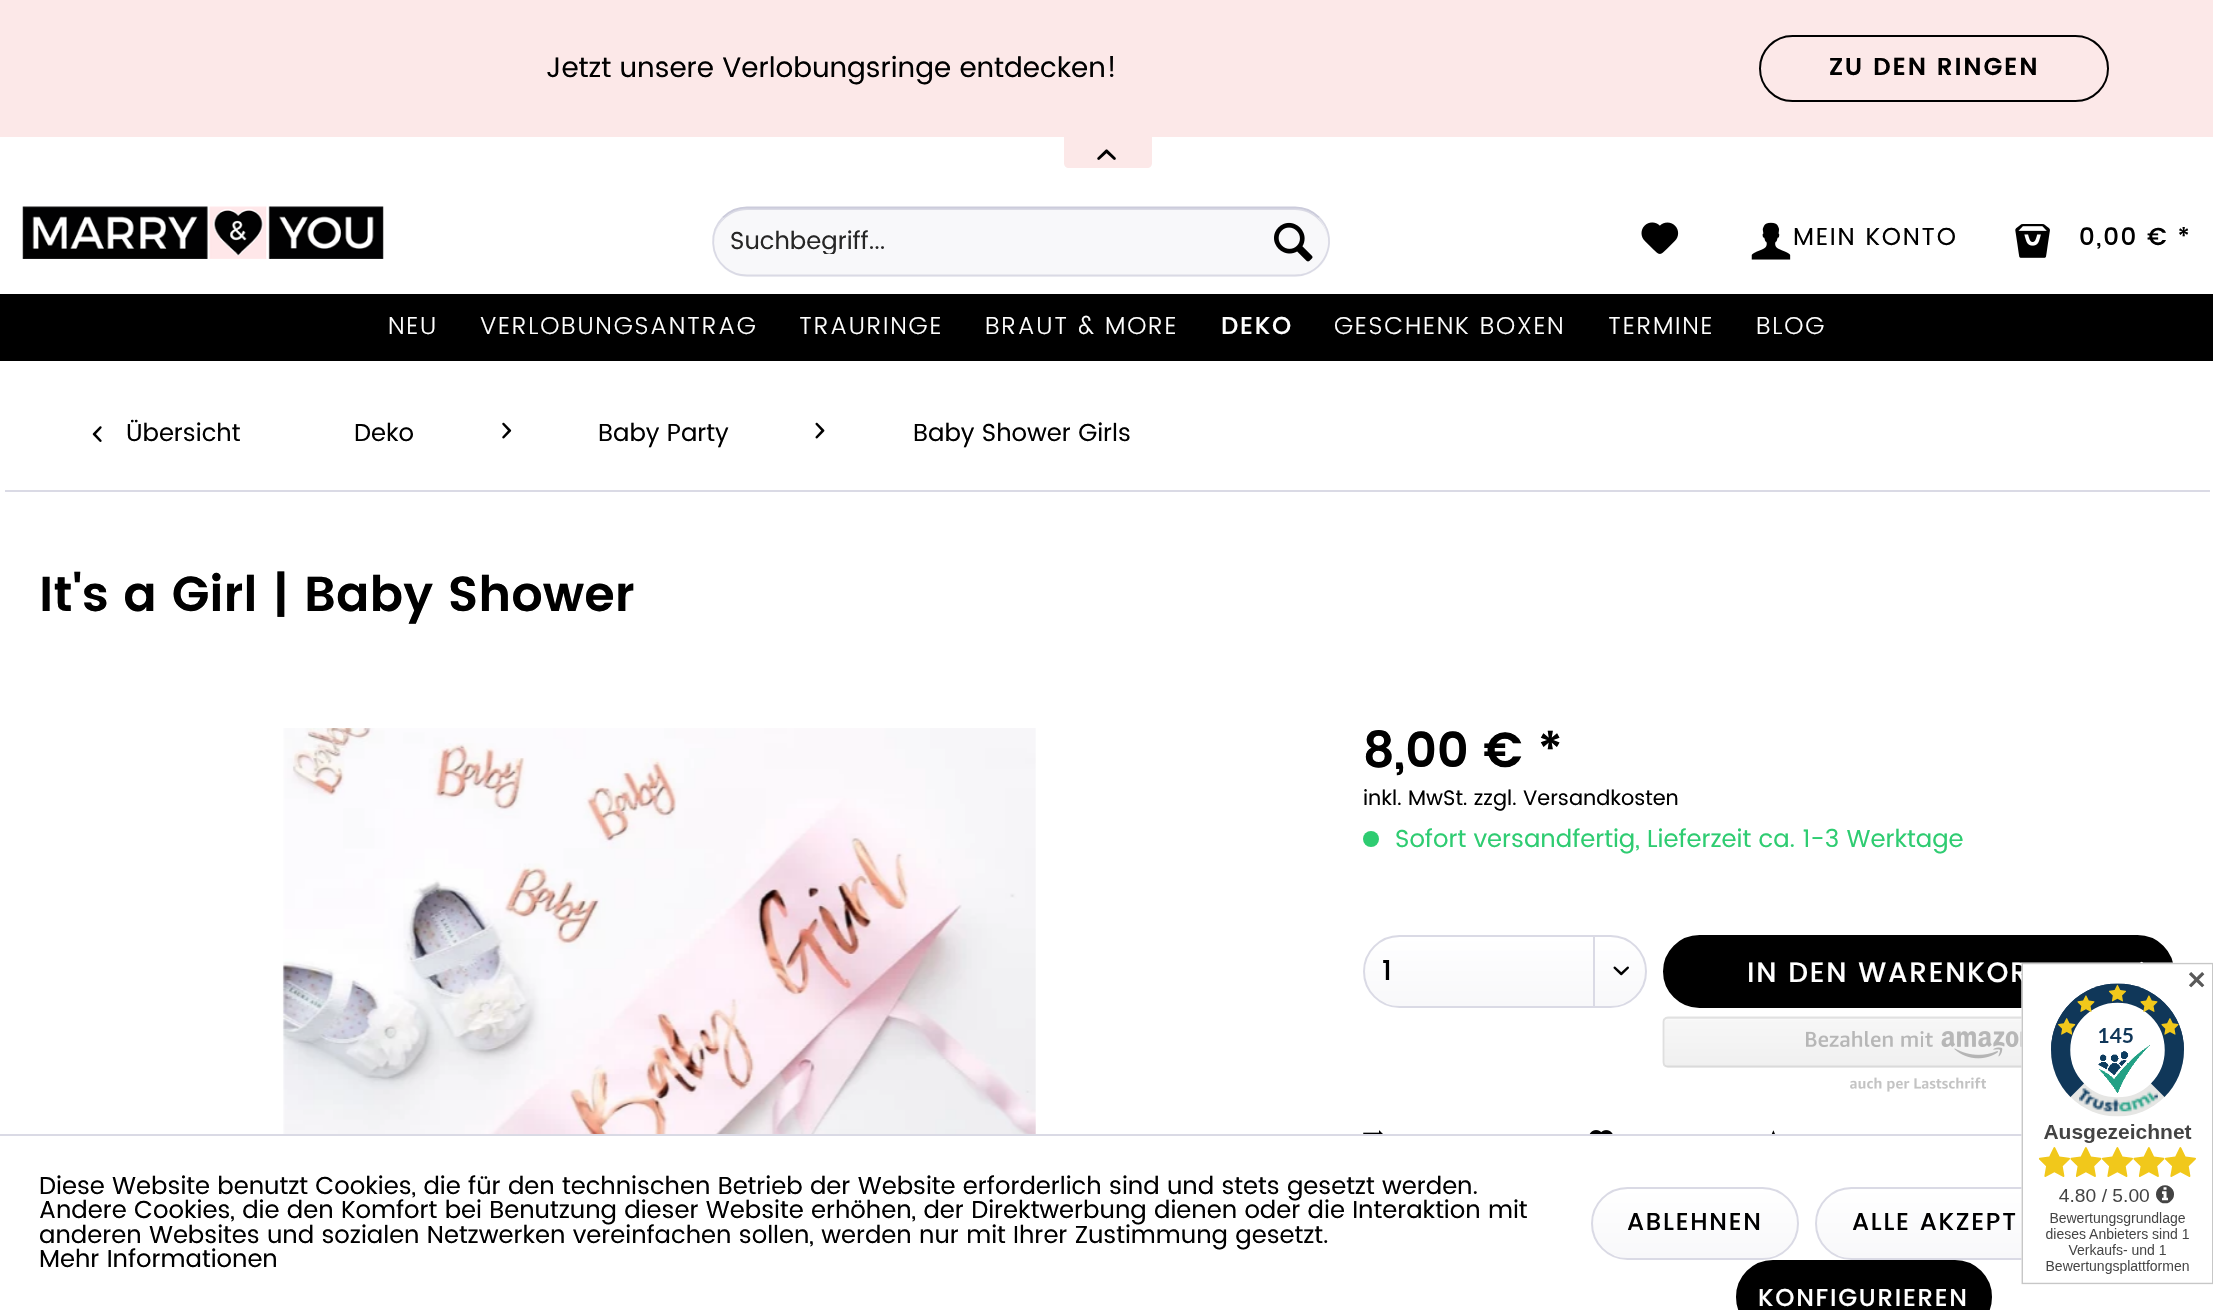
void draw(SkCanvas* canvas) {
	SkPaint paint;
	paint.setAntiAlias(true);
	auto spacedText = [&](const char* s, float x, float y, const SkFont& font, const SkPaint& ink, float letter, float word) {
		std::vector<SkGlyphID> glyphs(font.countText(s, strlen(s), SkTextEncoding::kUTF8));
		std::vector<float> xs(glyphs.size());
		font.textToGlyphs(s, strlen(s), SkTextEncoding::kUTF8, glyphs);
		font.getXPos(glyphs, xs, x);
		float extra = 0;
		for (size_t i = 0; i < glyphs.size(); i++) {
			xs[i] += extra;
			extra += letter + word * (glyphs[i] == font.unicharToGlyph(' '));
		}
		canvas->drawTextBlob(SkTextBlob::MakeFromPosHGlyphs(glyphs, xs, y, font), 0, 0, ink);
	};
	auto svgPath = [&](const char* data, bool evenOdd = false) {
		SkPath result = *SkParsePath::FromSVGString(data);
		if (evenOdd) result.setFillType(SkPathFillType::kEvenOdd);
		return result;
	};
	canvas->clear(0xffffffff);
	paint.setColor(0xfffce8e8);
	canvas->drawRect(SkRect::MakeXYWH(0, 0, 2213, 137), paint);
	SkFont f1(fontMgr->matchFamilyStyle("Poppins", SkFontStyle::Normal()), 28);
	f1.setSubpixel(true);
	paint.setColor(0xff000000);
	canvas->drawString("Jetzt unsere Verlobungsringe entdecken!", 546, 77, f1, paint);
	paint.setStroke(true);
	paint.setStrokeWidth(2);
	canvas->drawRoundRect(SkRect::MakeXYWH(1760, 36, 348, 65), 32.5, 32.5, paint);
	SkFont f2(fontMgr->matchFamilyStyle("Poppins", SkFontStyle(600, SkFontStyle::kNormal_Width, SkFontStyle::kUpright_Slant)), 24.5);
	f2.setSubpixel(true);
	paint.setStroke(false);
	spacedText("ZU DEN RINGEN", 1829, 75, f2, paint, 1.75, 0);
	paint.setColor(0xfffce8e8);
	canvas->drawPath(svgPath("M1064 137H1152V163C1152 166 1150 168 1147 168H1069C1066 168 1064 166 1064 163Z"), paint);
	canvas->drawImageRect(SkImages::DeferredFromEncodedData(SkData::MakeFromFileName("img1.png")), SkRect::MakeXYWH(1097, 149, 19, 11), SkSamplingOptions());
	canvas->drawImageRect(SkImages::DeferredFromEncodedData(SkData::MakeFromFileName("img2.png")), SkRect::MakeXYWH(22, 206, 362, 53), SkSamplingOptions());
	paint.setColor(0xfff8f8fa);
	canvas->drawRoundRect(SkRect::MakeXYWH(712, 207, 618, 70), 35, 35, paint);
	paint.setColor(0xffdadae5);
	canvas->drawPath(svgPath("M747 210H1295C1313 210 1328 225 1328 242C1328 224 1313 208 1294 208H748C729 208 714 224 714 242C714 225 729 210 747 210Z"), paint);
	paint.setStroke(true);
	paint.setStrokeWidth(1.8);
	paint.setColor(0xffcbcbdb);
	canvas->drawPath(svgPath("M723 217.5C729.5 211 738 207.5 747 207.5H1295C1304 207.5 1312.5 211 1319 217.5"), paint);
	paint.setColor(0xffdadae5);
	canvas->drawPath(svgPath("M1319 217.5C1338.5 236.5 1328 269.5 1301.5 275L1295 275.5H747C739.5 275.5 731.5 273 725.5 268C710 255.5 709 231.5 723 217.5"), paint);
	canvas->save();
	canvas->clipRect(SkRect::MakeXYWH(730, 229, 525, 25));
	SkFont f3(fontMgr->matchFamilyStyle("Poppins", SkFontStyle::Normal()), 24.5);
	f3.setSubpixel(true);
	paint.setStroke(false);
	paint.setColor(0xff262626);
	canvas->drawString("Suchbegriff...", 730, 249, f3, paint);
	canvas->restore();
	canvas->drawImageRect(SkImages::DeferredFromEncodedData(SkData::MakeFromFileName("img3.png")), SkRect::MakeXYWH(1274, 222, 39, 40), SkSamplingOptions());
	canvas->drawImageRect(SkImages::DeferredFromEncodedData(SkData::MakeFromFileName("img4.png")), SkRect::MakeXYWH(1641, 222, 38, 32), SkSamplingOptions());
	canvas->drawImageRect(SkImages::DeferredFromEncodedData(SkData::MakeFromFileName("img5.png")), SkRect::MakeXYWH(1751, 222, 40, 38), SkSamplingOptions());
	paint.setColor(0xff000000);
	spacedText("MEIN KONTO", 1793, 245, f3, paint, 1.75, 0);
	canvas->drawImageRect(SkImages::DeferredFromEncodedData(SkData::MakeFromFileName("img6.png")), SkRect::MakeXYWH(2015, 224, 35, 34), SkSamplingOptions());
	SkFont f4(fontMgr->matchFamilyStyle("Poppins", SkFontStyle(500, SkFontStyle::kNormal_Width, SkFontStyle::kUpright_Slant)), 24.5);
	f4.setSubpixel(true);
	spacedText("0,00 € *", 2079, 245, f4, paint, 1.75, 0);
	canvas->drawRect(SkRect::MakeXYWH(0, 294, 2213, 67), paint);
	SkFont f5(fontMgr->matchFamilyStyle("Poppins", SkFontStyle(300, SkFontStyle::kNormal_Width, SkFontStyle::kUpright_Slant)), 24.5);
	f5.setSubpixel(true);
	paint.setColor(0xffffffff);
	spacedText("NEU", 388, 334, f5, paint, 1.75, 0);
	spacedText("VERLOBUNGSANTRAG", 480, 334, f5, paint, 1.75, 0);
	spacedText("TRAURINGE", 799, 334, f5, paint, 1.75, 0);
	spacedText("BRAUT & MORE", 985, 334, f5, paint, 1.75, 0);
	spacedText("DEKO", 1221, 334, f4, paint, 1.75, 0);
	spacedText("GESCHENK BOXEN", 1334, 334, f5, paint, 1.75, 0);
	spacedText("TERMINE", 1608, 334, f5, paint, 1.75, 0);
	spacedText("BLOG", 1756, 334, f5, paint, 1.75, 0);
	paint.setColor(0xffdadae5);
	canvas->drawRect(SkRect::MakeXYWH(5, 490, 2205, 2), paint);
	canvas->drawImageRect(SkImages::DeferredFromEncodedData(SkData::MakeFromFileName("img7.png")), SkRect::MakeXYWH(92, 426, 10, 16), SkSamplingOptions());
	paint.setColor(0xff000000);
	canvas->drawString("Übersicht", 126, 441, f3, paint);
	canvas->drawString("Deko", 354, 441, f3, paint);
	canvas->drawImageRect(SkImages::DeferredFromEncodedData(SkData::MakeFromFileName("img8.png")), SkRect::MakeXYWH(502, 422, 10, 17), SkSamplingOptions());
	canvas->drawString("Baby Party", 598, 441, f3, paint);
	canvas->drawImageRect(SkImages::DeferredFromEncodedData(SkData::MakeFromFileName("img9.png")), SkRect::MakeXYWH(815, 422, 10, 17), SkSamplingOptions());
	canvas->drawString("Baby Shower Girls", 913, 441, f3, paint);
	SkFont f6(fontMgr->matchFamilyStyle("Poppins", SkFontStyle(600, SkFontStyle::kNormal_Width, SkFontStyle::kUpright_Slant)), 49);
	f6.setSubpixel(true);
	canvas->drawString("It's a Girl | Baby Shower", 39, 611, f6, paint);
	canvas->drawImageRect(SkImages::DeferredFromEncodedData(SkData::MakeFromFileName("img10.png")), SkRect::MakeXYWH(282, 728, 754, 406), SkSamplingOptions());
	canvas->drawString("8,00 € *", 1363, 767, f6, paint);
	SkFont f7(fontMgr->matchFamilyStyle("Poppins", SkFontStyle::Normal()), 21);
	f7.setSubpixel(true);
	canvas->drawString("inkl. MwSt. zzgl. Versandkosten", 1363, 805, f7, paint);
	paint.setColor(0xff2ecc71);
	canvas->drawCircle(1371, 839, 8, paint);
	canvas->drawString("Sofort versandfertig, Lieferzeit ca. 1-3 Werktage", 1395, 847, f3, paint);
	{
		const SkColor colors[] = {0xffffffff, 0xfff8f8fa};
		const float stops[] = {0, 1};
		const SkPoint ends[] = {{1505, 936}, {1505, 1006}};
		paint.setShader(SkGradientShader::MakeLinear(ends, colors, stops, 2, SkTileMode::kClamp));
		paint.setAlpha(255);
	}
	canvas->drawRoundRect(SkRect::MakeXYWH(1365, 936, 280, 70), 35, 35, paint);
	paint.setStroke(true);
	paint.setStrokeWidth(2);
	paint.setShader(nullptr);
	paint.setColor(0xffdadae5);
	canvas->drawRoundRect(SkRect::MakeXYWH(1364, 936, 282, 71), 35.5, 35.5, paint);
	SkFont f8(fontMgr->matchFamilyStyle("Poppins", SkFontStyle(500, SkFontStyle::kNormal_Width, SkFontStyle::kUpright_Slant)), 28);
	f8.setSubpixel(true);
	paint.setStroke(false);
	paint.setColor(0xff000000);
	canvas->drawString("1", 1382, 980, f8, paint);
	paint.setColor(0xffdadae5);
	canvas->drawRect(SkRect::MakeXYWH(1593, 936, 2, 70), paint);
	canvas->drawImageRect(SkImages::DeferredFromEncodedData(SkData::MakeFromFileName("img11.png")), SkRect::MakeXYWH(1613, 966, 16, 10), SkSamplingOptions());
	paint.setColor(0xff000000);
	canvas->drawRoundRect(SkRect::MakeXYWH(1664, 936, 509, 71), 35.5, 35.5, paint);
	paint.setStroke(true);
	canvas->drawRoundRect(SkRect::MakeXYWH(1664, 936, 509, 71), 35.5, 35.5, paint);
	paint.setStroke(false);
	paint.setColor(0xffffffff);
	spacedText("IN DEN WARENKOR", 1747, 982, f8, paint, 1.75, 0);
	canvas->drawImageRect(SkImages::DeferredFromEncodedData(SkData::MakeFromFileName("img12.png")), SkRect::MakeXYWH(2140, 961, 4, 2), SkSamplingOptions());
	canvas->save();
	canvas->clipPath(svgPath("M1668 1017H2169C2172 1017 2174 1019 2174 1022V1063C2174 1066 2172 1068 2169 1068H1668C1665 1068 1663 1066 1663 1063V1022C1663 1019 1665 1017 1668 1017Z"), true);
	{
		const SkColor colors[] = {0xfff7f7f7, 0xfff0f0f0};
		const float stops[] = {0, 1};
		const SkPoint ends[] = {{1918, 971}, {1918, 1019}};
		paint.setShader(SkGradientShader::MakeLinear(ends, colors, stops, 2, SkTileMode::kClamp));
		paint.setAlpha(255);
	}
	canvas->drawRect(SkRect::MakeXYWH(1663, 1017, 359, 2), paint);
	{
		const SkColor colors[] = {0xfff7f7f7, 0xfff0f0f0};
		const float stops[] = {0, 1};
		const SkPoint ends[] = {{1918, 1019}, {1918, 1066}};
		paint.setShader(SkGradientShader::MakeLinear(ends, colors, stops, 2, SkTileMode::kClamp));
		paint.setAlpha(255);
	}
	canvas->drawRect(SkRect::MakeXYWH(1663, 1019, 359, 47), paint);
	{
		const SkColor colors[] = {0xfff7f7f7, 0xfff0f0f0};
		const float stops[] = {0, 1};
		const SkPoint ends[] = {{1918, 1066}, {1918, 1113}};
		paint.setShader(SkGradientShader::MakeLinear(ends, colors, stops, 2, SkTileMode::kClamp));
		paint.setAlpha(255);
	}
	canvas->drawRect(SkRect::MakeXYWH(1663, 1066, 359, 2), paint);
	canvas->restore();
	paint.setShader(nullptr);
	paint.setColor(0xfffafafa);
	canvas->drawPath(svgPath("M1668 1020H2168C2170 1020 2172 1022 2172 1024V1023C2172 1021 2170 1019 2168 1019H1668C1666 1019 1664 1021 1664 1023V1024C1664 1022 1666 1020 1668 1020Z"), paint);
	paint.setStroke(true);
	paint.setStrokeWidth(1.8);
	paint.setColor(0xffe1e1e1);
	canvas->drawPath(svgPath("M1664.5 1019C1665.5 1018 1666.5 1017.5 1668 1017.5H2168C2169.5 1017.5 2170.5 1018 2171.5 1019"), paint);
	paint.setColor(0xffdadada);
	canvas->drawPath(svgPath("M2171.5 1065.5C2170.5 1066 2169.5 1066.5 2168 1066.5H1668C1666.5 1066.5 1665.5 1066 1664.5 1065.5"), paint);
	paint.setColor(0xffdfdfdf);
	canvas->drawPath(svgPath("M1664.5 1065.5C1664 1064.5 1663.5 1063.5 1663.5 1062V1022C1663.5 1021 1664 1019.5 1664.5 1019"), paint);
	canvas->drawImageRect(SkImages::DeferredFromEncodedData(SkData::MakeFromFileName("img13.png")), SkRect::MakeXYWH(1806, 1031, 216, 28), SkSamplingOptions());
	canvas->drawImageRect(SkImages::DeferredFromEncodedData(SkData::MakeFromFileName("img14.png")), SkRect::MakeXYWH(1850, 1077, 136, 15), SkSamplingOptions());
	canvas->drawImageRect(SkImages::DeferredFromEncodedData(SkData::MakeFromFileName("img15.png")), SkRect::MakeXYWH(1363, 1130, 20, 4), SkSamplingOptions());
	canvas->drawImageRect(SkImages::DeferredFromEncodedData(SkData::MakeFromFileName("img16.png")), SkRect::MakeXYWH(1589, 1130, 24, 4), SkSamplingOptions());
	canvas->drawImageRect(SkImages::DeferredFromEncodedData(SkData::MakeFromFileName("img17.png")), SkRect::MakeXYWH(1771, 1130, 4, 4), SkSamplingOptions());
	paint.setStroke(false);
	paint.setColor(0xffdadae5);
	canvas->drawRect(SkRect::MakeXYWH(0, 1134, 2022, 2), paint);
	{
		const SkColor colors[] = {0xffffffff, 0xfff8f8fa};
		const float stops[] = {0, 1};
		const SkPoint ends[] = {{1971, 1188}, {1971, 1258}};
		paint.setShader(SkGradientShader::MakeLinear(ends, colors, stops, 2, SkTileMode::kClamp));
		paint.setAlpha(255);
	}
	canvas->drawRoundRect(SkRect::MakeXYWH(1817, 1188, 309, 70), 35, 35, paint);
	paint.setStroke(true);
	paint.setStrokeWidth(2);
	paint.setShader(nullptr);
	paint.setColor(0xffdadae5);
	canvas->drawRoundRect(SkRect::MakeXYWH(1816, 1188, 311, 71), 35.5, 35.5, paint);
	canvas->drawImageRect(SkImages::DeferredFromEncodedData(SkData::MakeFromFileName("img18.png")), SkRect::MakeXYWH(2021, 962, 192, 323), SkSamplingOptions());
	SkFont f9(fontMgr->matchFamilyStyle("DejaVu Sans", SkFontStyle::Bold()), 24.5);
	f9.setSubpixel(true);
	paint.setStroke(false);
	paint.setColor(0xff595959);
	canvas->drawString("✕", 2186, 989, f9, paint);
	paint.setColor(0xff000000);
	canvas->drawString("Diese Website benutzt Cookies, die für den technischen Betrieb der Website erforderlich sind und stets gesetzt werden.", 39, 1194, f3, paint);
	canvas->drawString("Andere Cookies, die den Komfort bei Benutzung dieser Website erhöhen, der Direktwerbung dienen oder die Interaktion mit", 39, 1218, f3, paint);
	canvas->drawString("anderen Websites und sozialen Netzwerken vereinfachen sollen, werden nur mit Ihrer Zustimmung gesetzt.", 39, 1243, f3, paint);
	canvas->drawString("Mehr Informationen", 39, 1267, f3, paint);
	{
		const SkColor colors[] = {0xffffffff, 0xfff8f8fa};
		const float stops[] = {0, 1};
		const SkPoint ends[] = {{1695, 1188}, {1695, 1258}};
		paint.setShader(SkGradientShader::MakeLinear(ends, colors, stops, 2, SkTileMode::kClamp));
		paint.setAlpha(255);
	}
	canvas->drawRoundRect(SkRect::MakeXYWH(1593, 1188, 204, 70), 35, 35, paint);
	paint.setStroke(true);
	paint.setShader(nullptr);
	paint.setColor(0xffdadae5);
	canvas->drawRoundRect(SkRect::MakeXYWH(1592, 1188, 206, 71), 35.5, 35.5, paint);
	paint.setStroke(false);
	paint.setColor(0xff000000);
	spacedText("ABLEHNEN", 1627, 1230, f4, paint, 1.75, 0);
	spacedText("ALLE AKZEPT", 1852, 1230, f4, paint, 1.75, 0);
	canvas->drawRoundRect(SkRect::MakeXYWH(1737, 1261, 254, 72), 36, 36, paint);
	paint.setStroke(true);
	canvas->drawRoundRect(SkRect::MakeXYWH(1737, 1261, 254, 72), 36, 36, paint);
	paint.setStroke(false);
	paint.setColor(0xffffffff);
	spacedText("KONFIGURIEREN", 1758, 1306, f4, paint, 1.75, 0);
}
